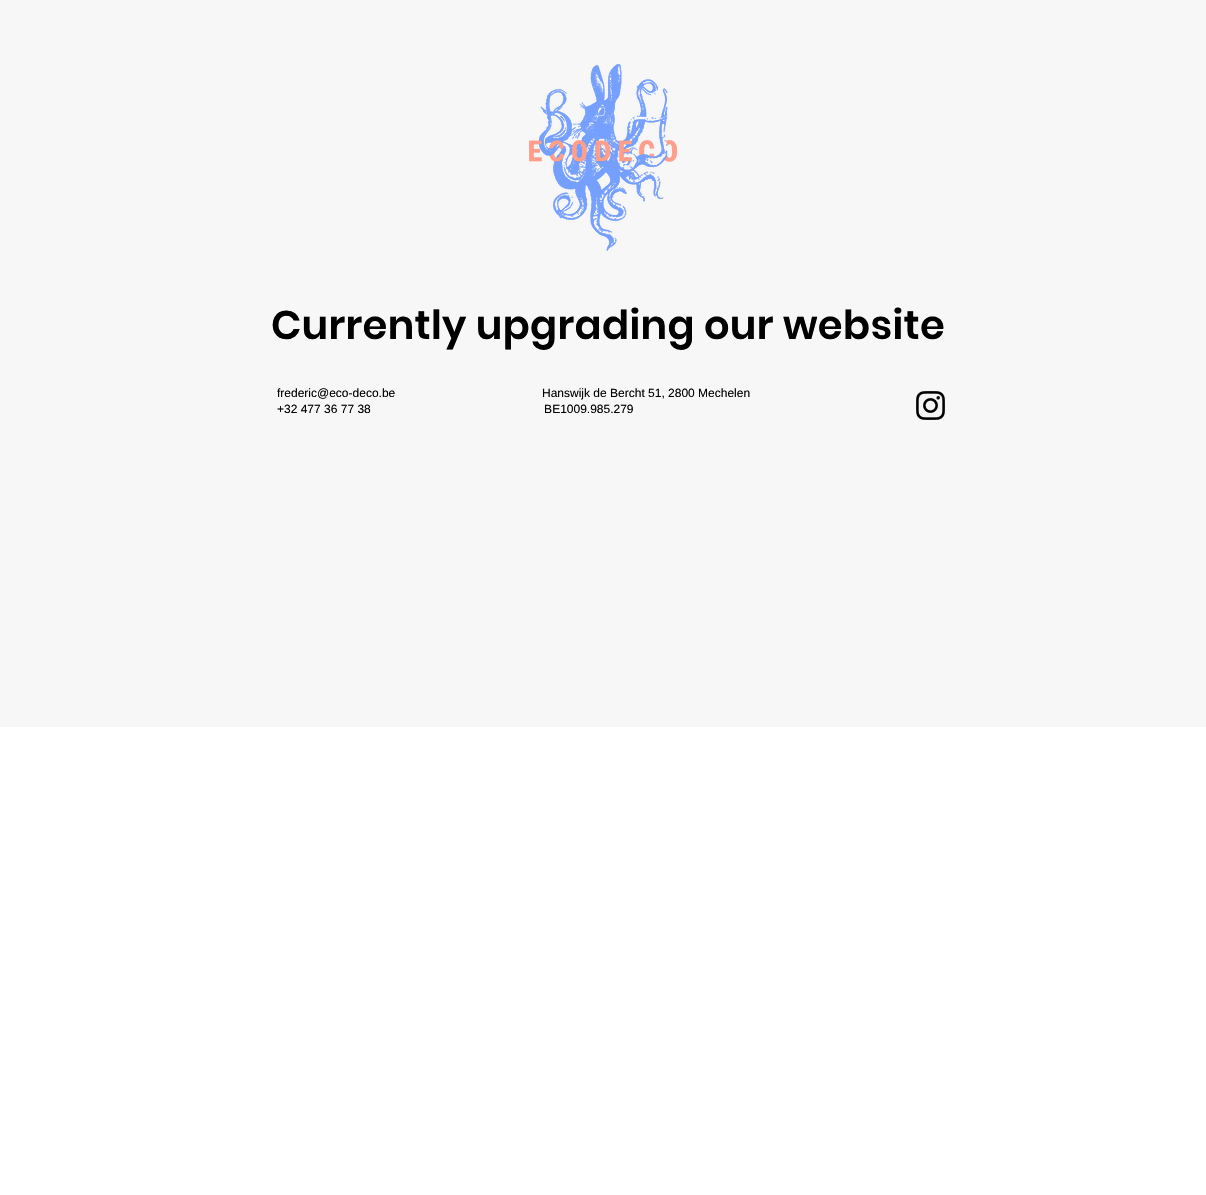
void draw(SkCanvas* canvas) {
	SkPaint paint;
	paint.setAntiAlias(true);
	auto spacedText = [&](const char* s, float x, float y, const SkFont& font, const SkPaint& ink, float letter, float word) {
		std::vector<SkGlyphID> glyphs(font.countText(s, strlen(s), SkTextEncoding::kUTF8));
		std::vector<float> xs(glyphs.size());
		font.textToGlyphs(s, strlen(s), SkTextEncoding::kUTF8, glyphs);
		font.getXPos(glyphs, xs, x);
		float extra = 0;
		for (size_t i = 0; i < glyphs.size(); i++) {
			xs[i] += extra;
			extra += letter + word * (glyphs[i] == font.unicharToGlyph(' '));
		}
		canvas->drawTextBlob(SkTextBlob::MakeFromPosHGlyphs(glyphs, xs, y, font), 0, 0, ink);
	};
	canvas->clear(0xffffffff);
	paint.setColor(0xfff7f7f7);
	canvas->drawRect(SkRect::MakeXYWH(0, 0, 1206, 727), paint);
	canvas->drawImageRect(SkImages::DeferredFromEncodedData(SkData::MakeFromFileName("img1.png")), SkRect::MakeXYWH(529, 64, 149, 187), SkSamplingOptions());
	SkFont f1(fontMgr->matchFamilyStyle("Poppins", SkFontStyle(600, SkFontStyle::kNormal_Width, SkFontStyle::kUpright_Slant)), 40);
	f1.setSubpixel(true);
	paint.setColor(0xff000000);
	spacedText("Currently upgrading our website", 271, 339, f1, paint, 0.4, 0);
	SkFont f2(fontMgr->matchFamilyStyle("Liberation Sans", SkFontStyle::Normal()), 12);
	f2.setSubpixel(true);
	canvas->drawString("frederic@eco-deco.be", 277, 397, f2, paint);
	canvas->drawString("Hanswijk de Bercht 51, 2800 Mechelen", 542, 397, f2, paint);
	canvas->drawString("+32 477 36 77 38                                                    BE1009.985.279", 277, 413, f2, paint);
	canvas->drawImageRect(SkImages::DeferredFromEncodedData(SkData::MakeFromFileName("img2.png")), SkRect::MakeXYWH(916, 391, 29, 29), SkSamplingOptions());
}
